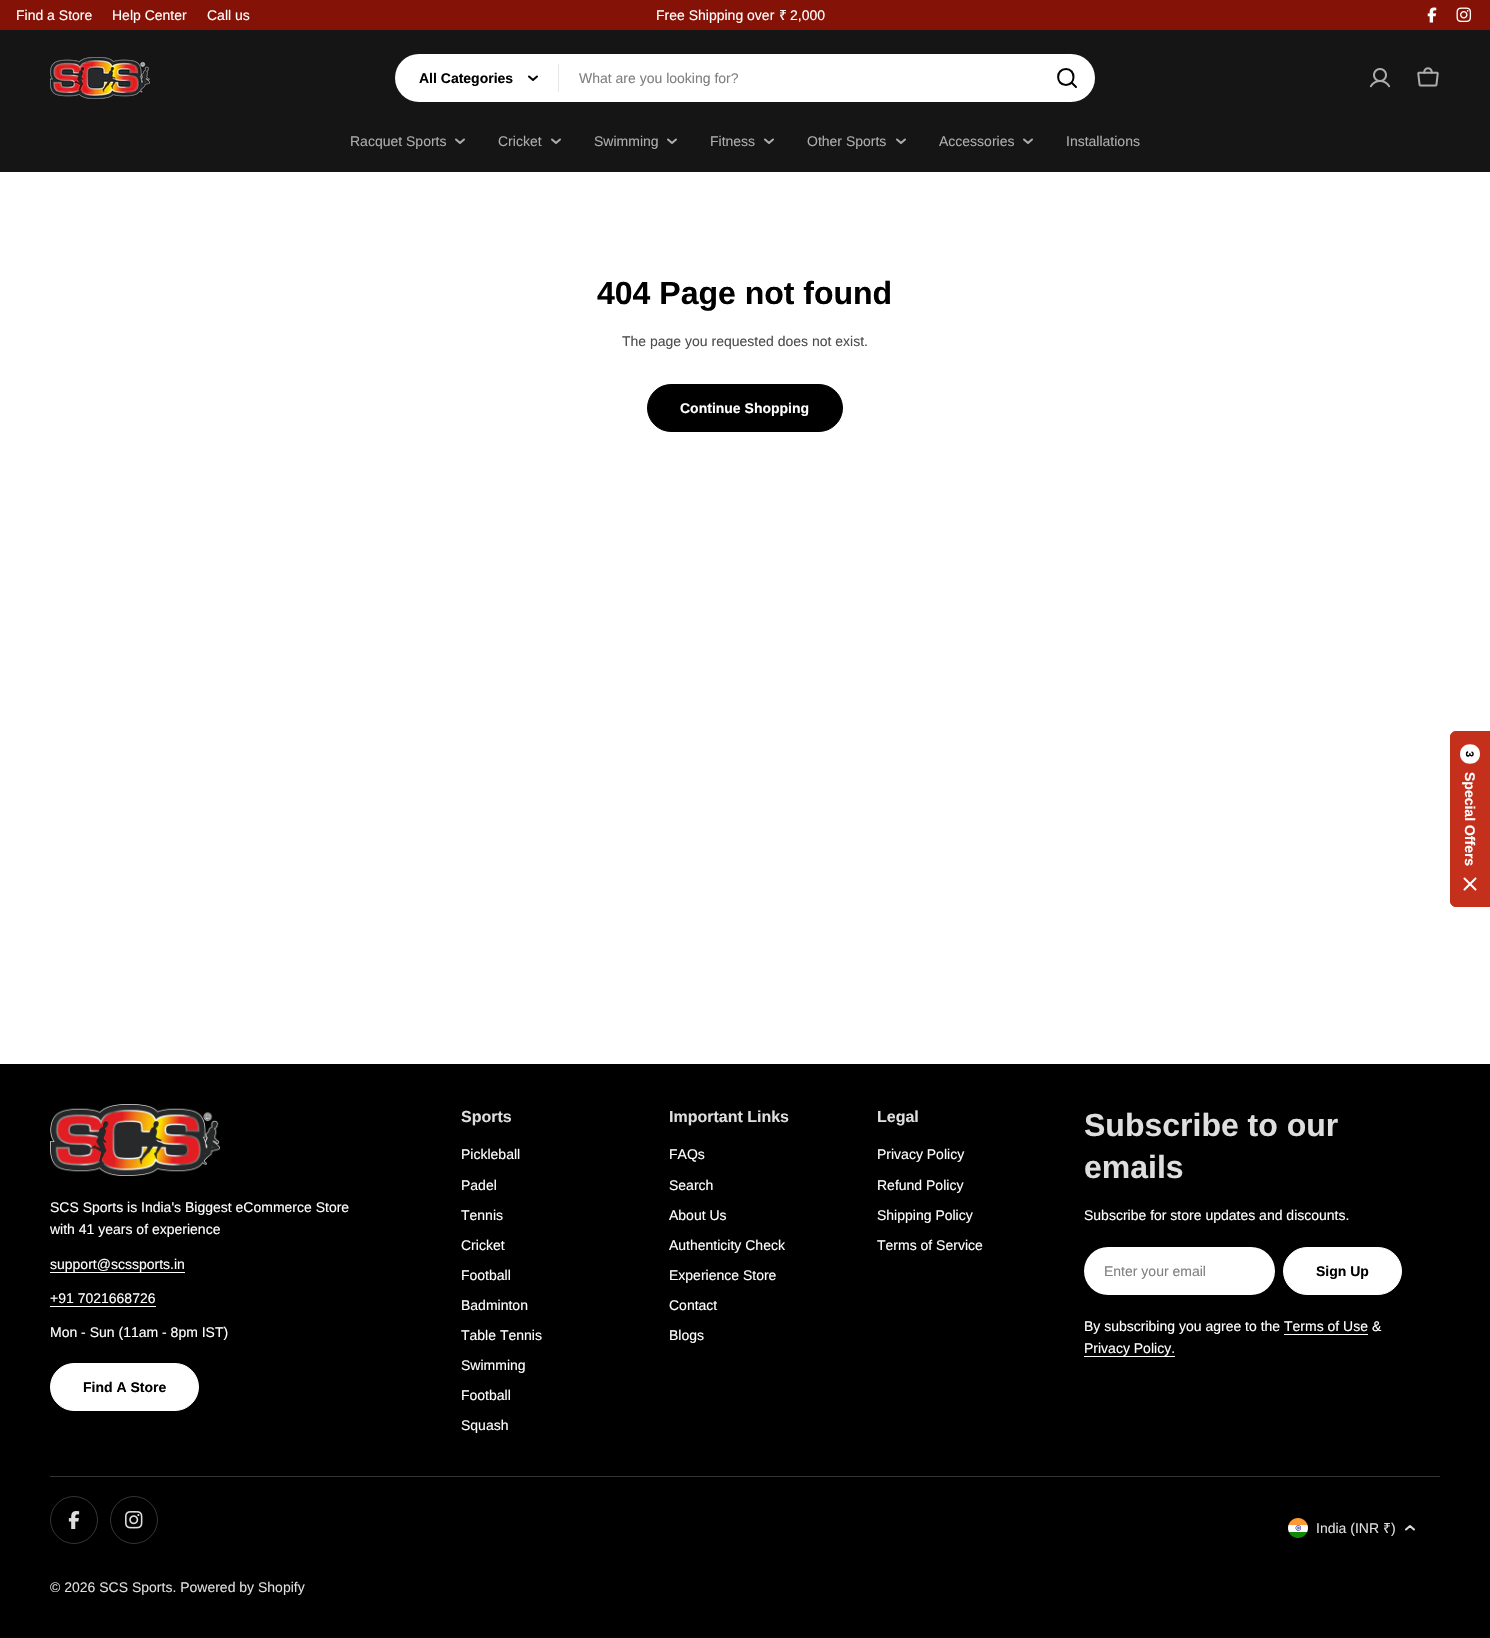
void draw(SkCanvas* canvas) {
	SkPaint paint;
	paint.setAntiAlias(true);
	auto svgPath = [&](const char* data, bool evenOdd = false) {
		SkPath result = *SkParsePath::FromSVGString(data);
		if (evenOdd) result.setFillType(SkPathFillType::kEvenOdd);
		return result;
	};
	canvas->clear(0xffffffff);
	paint.setColor(0xff851206);
	canvas->drawRect(SkRect::MakeXYWH(0, 0, 1490, 30), paint);
	SkFont f1(fontMgr->matchFamilyStyle("Liberation Sans", SkFontStyle::Normal()), 14);
	f1.setSubpixel(true);
	paint.setColor(0xffffffff);
	canvas->drawString("Find a Store", 16, 20, f1, paint);
	canvas->drawString("Help Center", 112, 20, f1, paint);
	canvas->drawString("Call us", 207, 20, f1, paint);
	canvas->drawString("Free Shipping over", 656, 20, f1, paint);
	SkFont f2(fontMgr->matchFamilyStyle("Noto Sans", SkFontStyle::Normal()), 14);
	f2.setSubpixel(true);
	canvas->drawString("₹", 779, 20, f2, paint);
	canvas->drawString("2,000", 790, 20, f1, paint);
	canvas->drawImageRect(SkImages::DeferredFromEncodedData(SkData::MakeFromFileName("img1.png")), SkRect::MakeXYWH(1427, 7, 10, 16), SkSamplingOptions());
	canvas->drawImageRect(SkImages::DeferredFromEncodedData(SkData::MakeFromFileName("img2.png")), SkRect::MakeXYWH(1456, 7, 16, 16), SkSamplingOptions());
	paint.setColor(0xff151515);
	canvas->drawRect(SkRect::MakeXYWH(0, 30, 1490, 142), paint);
	canvas->drawImageRect(SkImages::DeferredFromEncodedData(SkData::MakeFromFileName("img3.png")), SkRect::MakeXYWH(50, 57, 100, 42), SkSamplingOptions());
	paint.setColor(0xffffffff);
	canvas->drawRoundRect(SkRect::MakeXYWH(395, 54, 700, 48), 24, 24, paint);
	SkFont f3(fontMgr->matchFamilyStyle("Liberation Sans", SkFontStyle::Bold()), 14);
	f3.setSubpixel(true);
	paint.setColor(0xff000000);
	canvas->drawString("All Categories", 419, 83, f3, paint);
	paint.setStroke(true);
	paint.setStrokeWidth(2);
	paint.setStrokeCap(SkPaint::kRound_Cap);
	paint.setStrokeJoin(SkPaint::kRound_Join);
	canvas->drawPath(svgPath("M537 76.5L533 80L529 76.5"), paint);
	paint.setStroke(false);
	paint.setColor(0xffe6e6e6);
	canvas->drawRect(SkRect::MakeXYWH(558, 64, 1, 28), paint);
	paint.setColor(0xff808080);
	canvas->drawString("What are you looking for?", 579, 83, f1, paint);
	paint.setStroke(true);
	paint.setColor(0xff000000);
	canvas->drawPath(svgPath("M1066 85C1076 85 1076 69 1066 69C1055.5 69 1055.5 85 1066 85ZM1071.5 82.5L1076 87"), paint);
	canvas->drawImageRect(SkImages::DeferredFromEncodedData(SkData::MakeFromFileName("img4.png")), SkRect::MakeXYWH(1369, 68, 22, 20), SkSamplingOptions());
	canvas->drawImageRect(SkImages::DeferredFromEncodedData(SkData::MakeFromFileName("img5.png")), SkRect::MakeXYWH(1417, 67, 22, 20), SkSamplingOptions());
	paint.setStroke(false);
	paint.setColor(0xffacacac);
	canvas->drawString("Racquet Sports", 350, 146, f1, paint);
	paint.setStroke(true);
	canvas->drawPath(svgPath("M464 139.5L460 143L456 139.5"), paint);
	paint.setStroke(false);
	canvas->drawString("Cricket", 498, 146, f1, paint);
	paint.setStroke(true);
	canvas->drawPath(svgPath("M560 139.5L556 143L552 139.5"), paint);
	paint.setStroke(false);
	canvas->drawString("Swimming", 594, 146, f1, paint);
	paint.setStroke(true);
	canvas->drawPath(svgPath("M676 139.5L672 143L668 139.5"), paint);
	paint.setStroke(false);
	canvas->drawString("Fitness", 710, 146, f1, paint);
	paint.setStroke(true);
	canvas->drawPath(svgPath("M773 139.5L769 143L765 139.5"), paint);
	paint.setStroke(false);
	canvas->drawString("Other Sports", 807, 146, f1, paint);
	paint.setStroke(true);
	canvas->drawPath(svgPath("M905 139.5L901 143L897 139.5"), paint);
	paint.setStroke(false);
	canvas->drawString("Accessories", 939, 146, f1, paint);
	paint.setStroke(true);
	canvas->drawPath(svgPath("M1032 139.5L1028 143L1024 139.5"), paint);
	paint.setStroke(false);
	canvas->drawString("Installations", 1066, 146, f1, paint);
	SkFont f4(fontMgr->matchFamilyStyle("Liberation Sans", SkFontStyle::Bold()), 32);
	f4.setSubpixel(true);
	paint.setColor(0xff000000);
	canvas->drawString("404 Page not found", 597, 304, f4, paint);
	paint.setColor(0xff4d4d4d);
	canvas->drawString("The page you requested does not exist.", 622, 346, f1, paint);
	paint.setColor(0xff000000);
	canvas->drawRoundRect(SkRect::MakeXYWH(647.5, 384.5, 195, 47), 23.5, 23.5, paint);
	paint.setStroke(true);
	paint.setStrokeWidth(1);
	paint.setStrokeCap(SkPaint::kButt_Cap);
	paint.setStrokeJoin(SkPaint::kMiter_Join);
	canvas->drawRoundRect(SkRect::MakeXYWH(647.5, 384.5, 195, 47), 23.5, 23.5, paint);
	paint.setStroke(false);
	paint.setColor(0xffffffff);
	canvas->drawString("Continue Shopping", 680, 413, f3, paint);
	paint.setColor(0xff000000);
	canvas->drawRect(SkRect::MakeXYWH(0, 1064, 1490, 574), paint);
	canvas->drawImageRect(SkImages::DeferredFromEncodedData(SkData::MakeFromFileName("img6.png")), SkRect::MakeXYWH(50, 1104, 170, 72), SkSamplingOptions());
	paint.setColor(0xffffffff);
	canvas->drawString("SCS Sports is India's Biggest eCommerce Store", 50, 1212, f1, paint);
	canvas->drawString("with 41 years of experience", 50, 1234, f1, paint);
	canvas->drawString("support@scssports.in", 50, 1269, f1, paint);
	canvas->drawRect(SkRect::MakeXYWH(50, 1272, 135, 1), paint);
	canvas->drawString("+91 7021668726", 50, 1303, f1, paint);
	canvas->drawRect(SkRect::MakeXYWH(50, 1306, 106, 1), paint);
	canvas->drawString("Mon - Sun (11am - 8pm IST)", 50, 1337, f1, paint);
	canvas->drawRoundRect(SkRect::MakeXYWH(50.5, 1363.5, 148, 47), 23.5, 23.5, paint);
	paint.setStroke(true);
	canvas->drawRoundRect(SkRect::MakeXYWH(50.5, 1363.5, 148, 47), 23.5, 23.5, paint);
	paint.setStroke(false);
	paint.setColor(0xff000000);
	canvas->drawString("Find A Store", 83, 1392, f3, paint);
	SkFont f5(fontMgr->matchFamilyStyle("Liberation Sans", SkFontStyle::Bold()), 16);
	f5.setSubpixel(true);
	paint.setColor(0xffdedede);
	canvas->drawString("Sports", 461, 1122, f5, paint);
	paint.setColor(0xffffffff);
	canvas->drawString("Pickleball", 461, 1159, f1, paint);
	canvas->drawString("Padel", 461, 1190, f1, paint);
	canvas->drawString("Tennis", 461, 1220, f1, paint);
	canvas->drawString("Cricket", 461, 1250, f1, paint);
	canvas->drawString("Football", 461, 1280, f1, paint);
	canvas->drawString("Badminton", 461, 1310, f1, paint);
	canvas->drawString("Table Tennis", 461, 1340, f1, paint);
	canvas->drawString("Swimming", 461, 1370, f1, paint);
	canvas->drawString("Football", 461, 1400, f1, paint);
	canvas->drawString("Squash", 461, 1430, f1, paint);
	paint.setColor(0xffdedede);
	canvas->drawString("Important Links", 669, 1122, f5, paint);
	paint.setColor(0xffffffff);
	canvas->drawString("FAQs", 669, 1159, f1, paint);
	canvas->drawString("Search", 669, 1190, f1, paint);
	canvas->drawString("About Us", 669, 1220, f1, paint);
	canvas->drawString("Authenticity Check", 669, 1250, f1, paint);
	canvas->drawString("Experience Store", 669, 1280, f1, paint);
	canvas->drawString("Contact", 669, 1310, f1, paint);
	canvas->drawString("Blogs", 669, 1340, f1, paint);
	paint.setColor(0xffdedede);
	canvas->drawString("Legal", 877, 1122, f5, paint);
	paint.setColor(0xffffffff);
	canvas->drawString("Privacy Policy", 877, 1159, f1, paint);
	canvas->drawString("Refund Policy", 877, 1190, f1, paint);
	canvas->drawString("Shipping Policy", 877, 1220, f1, paint);
	canvas->drawString("Terms of Service", 877, 1250, f1, paint);
	paint.setColor(0xffdedede);
	canvas->drawString("Subscribe to our", 1084, 1136, f4, paint);
	canvas->drawString("emails", 1084, 1178, f4, paint);
	paint.setColor(0xffffffff);
	canvas->drawString("Subscribe for store updates and discounts.", 1084, 1220, f1, paint);
	canvas->drawRoundRect(SkRect::MakeXYWH(1084, 1247, 191, 48), 24, 24, paint);
	paint.setColor(0xff808080);
	canvas->drawString("Enter your email", 1104, 1276, f1, paint);
	paint.setColor(0xffffffff);
	canvas->drawRoundRect(SkRect::MakeXYWH(1283.5, 1247.5, 118, 47), 23.5, 23.5, paint);
	paint.setStroke(true);
	canvas->drawRoundRect(SkRect::MakeXYWH(1283.5, 1247.5, 118, 47), 23.5, 23.5, paint);
	paint.setStroke(false);
	paint.setColor(0xff000000);
	canvas->drawString("Sign Up", 1316, 1276, f3, paint);
	paint.setColor(0xffffffff);
	canvas->drawString("By subscribing you agree to the Terms of Use &", 1084, 1331, f1, paint);
	canvas->drawRect(SkRect::MakeXYWH(1284, 1334, 84, 1), paint);
	canvas->drawString("Privacy Policy.", 1084, 1353, f1, paint);
	canvas->drawRect(SkRect::MakeXYWH(1084, 1356, 91, 1), paint);
	paint.setColor(0xff333333);
	canvas->drawRect(SkRect::MakeXYWH(50, 1476, 1390, 1), paint);
	paint.setStroke(true);
	canvas->drawCircle(74, 1520, 23.5, paint);
	canvas->drawImageRect(SkImages::DeferredFromEncodedData(SkData::MakeFromFileName("img7.png")), SkRect::MakeXYWH(68, 1511, 12, 18), SkSamplingOptions());
	canvas->drawCircle(134, 1520, 23.5, paint);
	canvas->drawImageRect(SkImages::DeferredFromEncodedData(SkData::MakeFromFileName("img8.png")), SkRect::MakeXYWH(125, 1511, 18, 18), SkSamplingOptions());
	canvas->drawImageRect(SkImages::DeferredFromEncodedData(SkData::MakeFromFileName("img9.png")), SkRect::MakeXYWH(1288, 1518, 20, 20), SkSamplingOptions());
	paint.setStroke(false);
	paint.setColor(0xffdedede);
	canvas->drawString("India (INR", 1316, 1533, f1, paint);
	canvas->drawString("₹", 1383, 1533, f2, paint);
	canvas->drawString(")", 1391, 1533, f1, paint);
	paint.setStroke(true);
	paint.setStrokeWidth(2);
	paint.setStrokeCap(SkPaint::kRound_Cap);
	paint.setStrokeJoin(SkPaint::kRound_Join);
	canvas->drawPath(svgPath("M1406 1529.5L1410 1526L1414 1529.5"), paint);
	paint.setStroke(false);
	canvas->drawString("© 2026 SCS Sports. Powered by Shopify", 50, 1592, f1, paint);
	paint.setColor(0xffc4301c);
	canvas->drawPath(svgPath("M1450 901V737C1450 734 1453 731 1456 731H1490V907H1456C1453 907 1450 904 1450 901Z"), paint);
	paint.setStroke(true);
	paint.setStrokeWidth(1);
	paint.setStrokeCap(SkPaint::kButt_Cap);
	paint.setStrokeJoin(SkPaint::kMiter_Join);
	canvas->drawPath(svgPath("M1450.5 901V737C1450.5 734 1453 731.5 1456 731.5H1489.5V906.5H1456C1453 906.5 1450.5 904 1450.5 901Z"), paint);
	paint.setStroke(false);
	paint.setColor(0xffffffff);
	canvas->drawPath(svgPath("M1480 754C1480 767 1460 767 1460 754C1460 741 1480 741 1480 754Z"), paint);
	SkFont f6(fontMgr->matchFamilyStyle("Liberation Sans", SkFontStyle::Bold()), 11);
	f6.setSubpixel(true);
	paint.setColor(0xff000000);
	canvas->save();
	canvas->rotate(90, 1466, 751);
	canvas->drawString("3", 1466, 751, f6, paint);
	canvas->restore();
	paint.setColor(0xffffffff);
	canvas->save();
	canvas->rotate(90, 1465, 772);
	canvas->drawString("Special Offers", 1465, 772, f3, paint);
	canvas->restore();
	paint.setStroke(true);
	paint.setStrokeWidth(2);
	paint.setStrokeCap(SkPaint::kRound_Cap);
	paint.setStrokeJoin(SkPaint::kRound_Join);
	canvas->drawPath(svgPath("M1475.5 889.5L1464.5 878.5M1464.5 889.5L1475.5 878.5"), paint);
}
